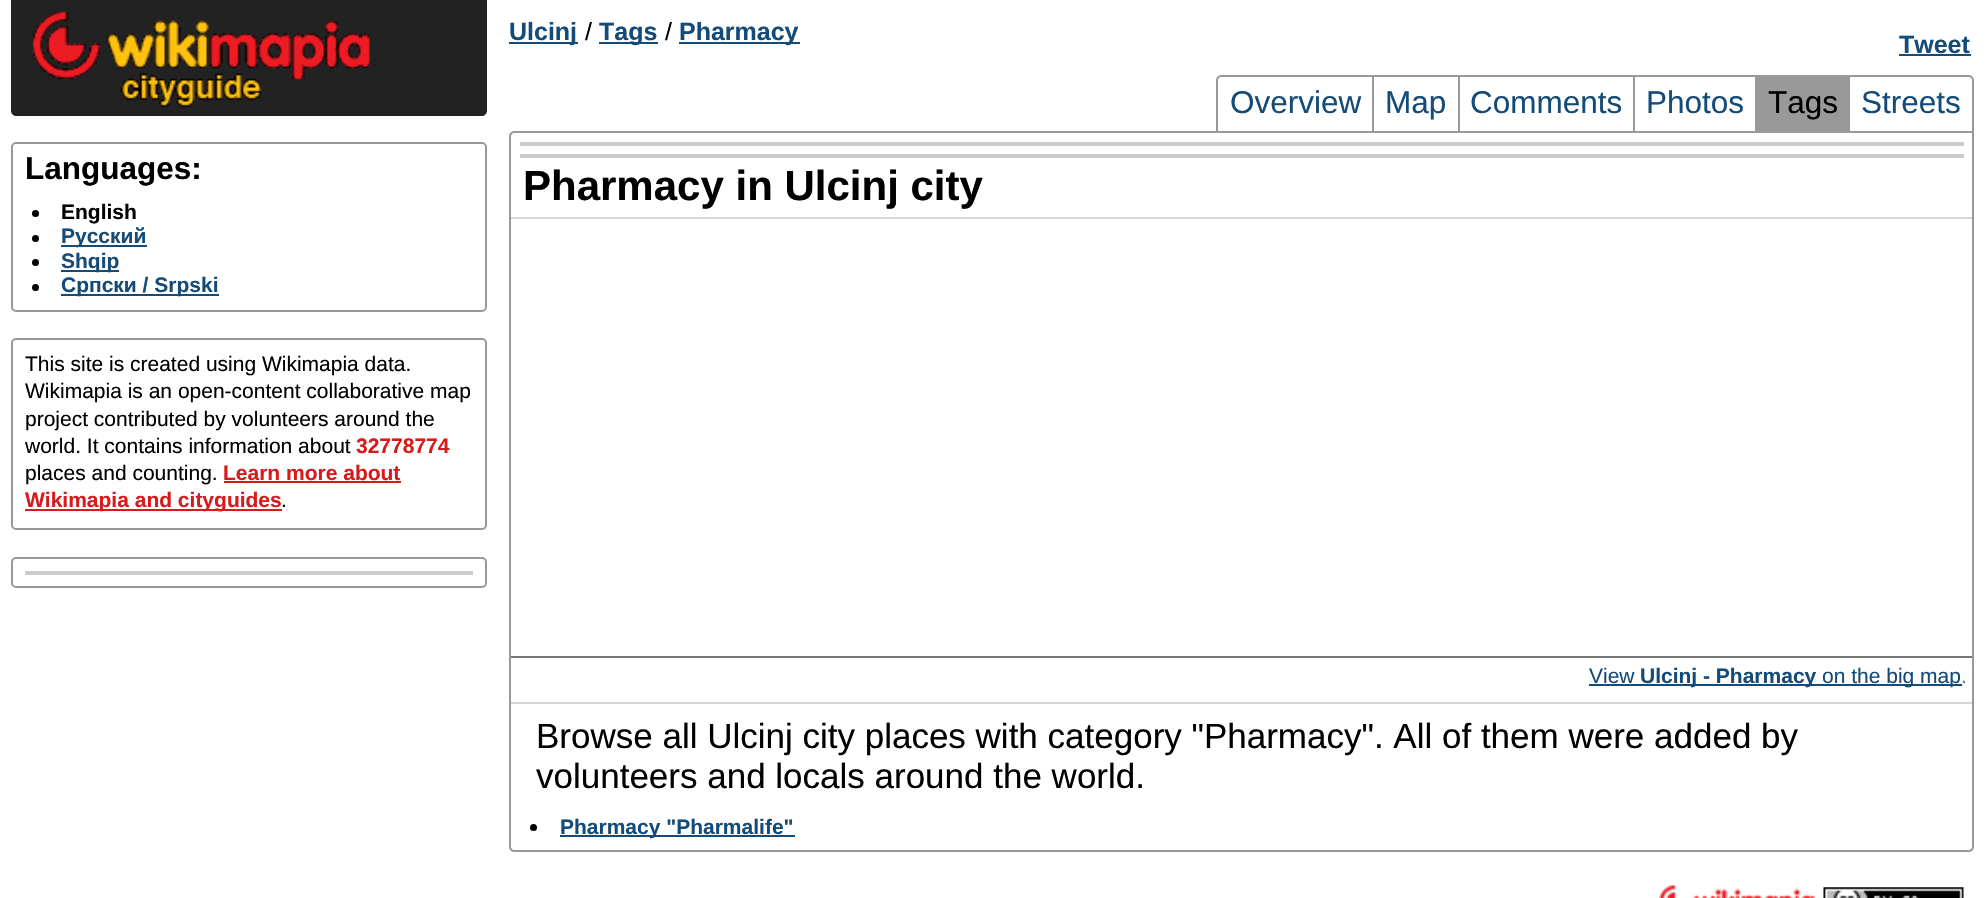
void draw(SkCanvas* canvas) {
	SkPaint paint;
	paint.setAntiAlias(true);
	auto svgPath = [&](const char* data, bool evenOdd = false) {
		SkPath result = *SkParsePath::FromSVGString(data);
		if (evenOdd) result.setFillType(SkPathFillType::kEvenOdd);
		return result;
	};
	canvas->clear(0xffffffff);
	paint.setColor(0xff144b78);
	canvas->drawRect(SkRect::MakeXYWH(509, 42, 69, 2), paint);
	SkFont f1(fontMgr->matchFamilyStyle("Liberation Sans", SkFontStyle::Bold()), 25);
	f1.setSubpixel(true);
	canvas->drawString("Ulcinj", 509, 40, f1, paint);
	SkFont f2(fontMgr->matchFamilyStyle("Liberation Sans", SkFontStyle::Normal()), 25);
	f2.setSubpixel(true);
	paint.setColor(0xff000000);
	canvas->drawString("/", 585, 40, f2, paint);
	paint.setColor(0xff144b78);
	canvas->drawRect(SkRect::MakeXYWH(599, 42, 59, 2), paint);
	canvas->drawString("Tags", 599, 40, f1, paint);
	paint.setColor(0xff000000);
	canvas->drawString("/", 665, 40, f2, paint);
	paint.setColor(0xff144b78);
	canvas->drawRect(SkRect::MakeXYWH(679, 42, 121, 2), paint);
	canvas->drawString("Pharmacy", 679, 40, f1, paint);
	canvas->drawString("Tweet", 1899, 53, f1, paint);
	canvas->drawRect(SkRect::MakeXYWH(1899, 54, 72, 2), paint);
	paint.setStroke(true);
	paint.setStrokeWidth(2);
	paint.setColor(0xff999999);
	canvas->drawPath(svgPath("M1221 76H1969C1971 76 1973 78 1973 80V132H1217V80C1217 78 1219 76 1221 76Z"), paint);
	paint.setStroke(false);
	canvas->drawRect(SkRect::MakeXYWH(1372, 77, 2, 54), paint);
	SkFont f3(fontMgr->matchFamilyStyle("Liberation Sans", SkFontStyle::Normal()), 31.5);
	f3.setSubpixel(true);
	paint.setColor(0xff144b78);
	canvas->drawString("Overview", 1230, 113, f3, paint);
	paint.setColor(0xff999999);
	canvas->drawRect(SkRect::MakeXYWH(1458, 77, 2, 54), paint);
	paint.setColor(0xff144b78);
	canvas->drawString("Map", 1385, 113, f3, paint);
	paint.setColor(0xff999999);
	canvas->drawRect(SkRect::MakeXYWH(1633, 77, 2, 54), paint);
	paint.setColor(0xff144b78);
	canvas->drawString("Comments", 1470, 113, f3, paint);
	paint.setColor(0xff999999);
	canvas->drawRect(SkRect::MakeXYWH(1755, 77, 95, 54), paint);
	paint.setColor(0xff144b78);
	canvas->drawString("Photos", 1646, 113, f3, paint);
	paint.setColor(0xff000000);
	canvas->drawString("Tags", 1768, 113, f3, paint);
	paint.setColor(0xff144b78);
	canvas->drawString("Streets", 1861, 113, f3, paint);
	paint.setColor(0xff222222);
	canvas->drawPath(svgPath("M12 1H486V111C486 113 484 115 482 115H16C14 115 12 113 12 111Z"), paint);
	paint.setStroke(true);
	canvas->drawPath(svgPath("M12 1H486V111C486 113 484 115 482 115H16C14 115 12 113 12 111Z"), paint);
	canvas->drawImageRect(SkImages::DeferredFromEncodedData(SkData::MakeFromFileName("img1.png")), SkRect::MakeXYWH(32, 11, 338, 97), SkSamplingOptions());
	paint.setColor(0xff999999);
	canvas->drawRoundRect(SkRect::MakeXYWH(12, 143, 474, 168), 4, 4, paint);
	SkFont f4(fontMgr->matchFamilyStyle("Liberation Sans", SkFontStyle::Bold()), 31.5);
	f4.setSubpixel(true);
	paint.setStroke(false);
	paint.setColor(0xff000000);
	canvas->drawString("Languages:", 25, 179, f4, paint);
	canvas->drawCircle(35.5, 213.5, 3.5, paint);
	SkFont f5(fontMgr->matchFamilyStyle("Liberation Sans", SkFontStyle::Bold()), 21);
	f5.setSubpixel(true);
	canvas->drawString("English", 61, 219, f5, paint);
	canvas->drawCircle(35.5, 238.5, 3.5, paint);
	paint.setColor(0xff144b78);
	canvas->drawRect(SkRect::MakeXYWH(61, 245, 86, 2), paint);
	canvas->drawString("Русский", 61, 243, f5, paint);
	paint.setColor(0xff000000);
	canvas->drawCircle(35.5, 262.5, 3.5, paint);
	paint.setColor(0xff144b78);
	canvas->drawRect(SkRect::MakeXYWH(61, 270, 58, 2), paint);
	canvas->drawString("Shqip", 61, 268, f5, paint);
	paint.setColor(0xff000000);
	canvas->drawCircle(35.5, 287.5, 3.5, paint);
	paint.setColor(0xff144b78);
	canvas->drawRect(SkRect::MakeXYWH(61, 294, 158, 2), paint);
	canvas->drawString("Српски / Srpski", 61, 292, f5, paint);
	paint.setStroke(true);
	paint.setColor(0xff999999);
	canvas->drawRoundRect(SkRect::MakeXYWH(12, 339, 474, 190), 4, 4, paint);
	SkFont f6(fontMgr->matchFamilyStyle("Liberation Sans", SkFontStyle::Normal()), 21);
	f6.setSubpixel(true);
	paint.setStroke(false);
	paint.setColor(0xff000000);
	canvas->drawString("This site is created using Wikimapia data.", 25, 371, f6, paint);
	canvas->drawString("Wikimapia is an open-content collaborative map", 25, 398, f6, paint);
	canvas->drawString("project contributed by volunteers around the", 25, 426, f6, paint);
	canvas->drawString("world. It contains information about", 25, 453, f6, paint);
	paint.setColor(0xffd71a1a);
	canvas->drawString("32778774", 356, 453, f5, paint);
	paint.setColor(0xff000000);
	canvas->drawString("places and counting.", 25, 480, f6, paint);
	paint.setColor(0xffd71a1a);
	canvas->drawString("Learn more about", 223, 480, f5, paint);
	canvas->drawRect(SkRect::MakeXYWH(224, 481, 177, 2), paint);
	canvas->drawRect(SkRect::MakeXYWH(25, 509, 257, 2), paint);
	canvas->drawString("Wikimapia and cityguides", 25, 507, f5, paint);
	paint.setColor(0xff000000);
	canvas->drawString(".", 281, 507, f6, paint);
	paint.setStroke(true);
	paint.setColor(0xff999999);
	canvas->drawRoundRect(SkRect::MakeXYWH(12, 558, 474, 29), 4, 4, paint);
	paint.setStroke(false);
	paint.setColor(0xffcccccc);
	canvas->drawRect(SkRect::MakeXYWH(25, 571, 448, 4), paint);
	paint.setStroke(true);
	paint.setColor(0xff999999);
	canvas->drawPath(svgPath("M514 132H1973V847C1973 849 1971 851 1969 851H514C512 851 510 849 510 847V136C510 134 512 132 514 132Z"), paint);
	paint.setStroke(false);
	paint.setColor(0xffcccccc);
	canvas->drawRect(SkRect::MakeXYWH(520, 142, 1444, 4), paint);
	canvas->drawRect(SkRect::MakeXYWH(520, 154, 1444, 4), paint);
	SkFont f7(fontMgr->matchFamilyStyle("Liberation Sans", SkFontStyle::Bold()), 42);
	f7.setSubpixel(true);
	paint.setColor(0xff000000);
	canvas->drawString("Pharmacy in Ulcinj city", 523, 200, f7, paint);
	paint.setColor(0xffd5d5d5);
	canvas->drawRect(SkRect::MakeXYWH(511, 217, 1461, 2), paint);
	paint.setColor(0xff777777);
	canvas->drawRect(SkRect::MakeXYWH(511, 656, 1461, 2), paint);
	paint.setColor(0xff144b78);
	canvas->drawString("View", 1589, 683, f6, paint);
	canvas->drawRect(SkRect::MakeXYWH(1589, 684, 373, 2), paint);
	canvas->drawString("Ulcinj - Pharmacy", 1640, 683, f5, paint);
	canvas->drawString("on the big map", 1822, 683, f6, paint);
	paint.setColor(0xff777777);
	canvas->drawString(".", 1961, 683, f6, paint);
	paint.setColor(0xffd5d5d5);
	canvas->drawRect(SkRect::MakeXYWH(511, 702, 1461, 2), paint);
	SkFont f8(fontMgr->matchFamilyStyle("Liberation Sans", SkFontStyle::Normal()), 35);
	f8.setSubpixel(true);
	paint.setColor(0xff000000);
	canvas->drawString("Browse all Ulcinj city places with category \"Pharmacy\". All of them were added by", 536, 748, f8, paint);
	canvas->drawString("volunteers and locals around the world.", 536, 788, f8, paint);
	canvas->drawCircle(533.5, 827.5, 3.5, paint);
	paint.setColor(0xff144b78);
	canvas->drawRect(SkRect::MakeXYWH(560, 835, 235, 2), paint);
	canvas->drawString("Pharmacy \"Pharmalife\"", 560, 834, f5, paint);
	canvas->drawImageRect(SkImages::DeferredFromEncodedData(SkData::MakeFromFileName("img2.png")), SkRect::MakeXYWH(1659, 885, 156, 13), SkSamplingOptions());
	canvas->drawImageRect(SkImages::DeferredFromEncodedData(SkData::MakeFromFileName("img3.png")), SkRect::MakeXYWH(1823, 887, 141, 11), SkSamplingOptions());
}
